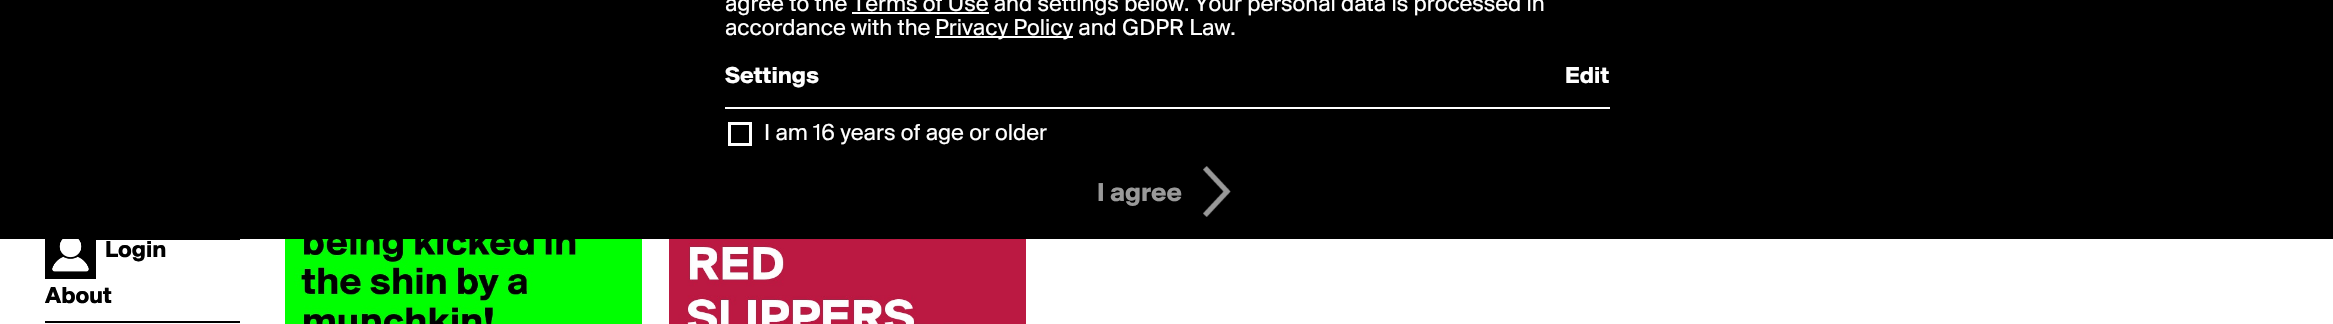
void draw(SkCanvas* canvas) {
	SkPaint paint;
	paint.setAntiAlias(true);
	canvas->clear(0xffffffff);
	paint.setColor(0xff000000);
	canvas->drawRect(SkRect::MakeXYWH(0, 0, 2333, 239), paint);
	SkFont f1(fontMgr->matchFamilyStyle("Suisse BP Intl", SkFontStyle::Normal()), 24);
	f1.setSubpixel(true);
	paint.setColor(0xffffffff);
	canvas->drawString("agree to the Terms of Use and settings below. Your personal data is processed in", 725, 11, f1, paint);
	canvas->drawRect(SkRect::MakeXYWH(852, 12, 137, 2), paint);
	canvas->drawString("accordance with the", 725, 35, f1, paint);
	canvas->drawRect(SkRect::MakeXYWH(935, 36, 138, 2), paint);
	canvas->drawString("Privacy Policy and GDPR Law.", 935, 35, f1, paint);
	SkFont f2(fontMgr->matchFamilyStyle("Suisse BP Intl", SkFontStyle::Bold()), 24);
	f2.setSubpixel(true);
	canvas->drawString("Settings", 725, 83, f2, paint);
	canvas->drawString("Edit", 1565, 83, f2, paint);
	canvas->drawRect(SkRect::MakeXYWH(725, 107, 885, 2), paint);
	paint.setStroke(true);
	paint.setStrokeWidth(3);
	canvas->drawRect(SkRect::MakeXYWH(729.5, 123.5, 21, 21), paint);
	paint.setStroke(false);
	canvas->drawString("I am 16 years of age or older", 764, 140, f1, paint);
	SkFont f3(fontMgr->matchFamilyStyle("Suisse BP Intl", SkFontStyle::Bold()), 27);
	f3.setSubpixel(true);
	paint.setColor(0xff999999);
	canvas->drawString("I agree", 1097, 201, f3, paint);
	canvas->drawImageRect(SkImages::DeferredFromEncodedData(SkData::MakeFromFileName("img1.png")), SkRect::MakeXYWH(1203, 166, 28, 51), SkSamplingOptions());
	canvas->drawImageRect(SkImages::DeferredFromEncodedData(SkData::MakeFromFileName("img2.png")), SkRect::MakeXYWH(45, 239, 51, 40), SkSamplingOptions());
	paint.setColor(0xff000000);
	canvas->drawString("Login", 105, 257, f2, paint);
	canvas->drawRect(SkRect::MakeXYWH(96, 239, 144, 1), paint);
	canvas->drawRect(SkRect::MakeXYWH(45, 321, 195, 2), paint);
	canvas->drawString("About", 45, 303, f2, paint);
	canvas->drawImageRect(SkImages::DeferredFromEncodedData(SkData::MakeFromFileName("img3.png")), SkRect::MakeXYWH(285, 239, 357, 85), SkSamplingOptions());
	canvas->drawImageRect(SkImages::DeferredFromEncodedData(SkData::MakeFromFileName("img4.png")), SkRect::MakeXYWH(669, 239, 357, 85), SkSamplingOptions());
}
